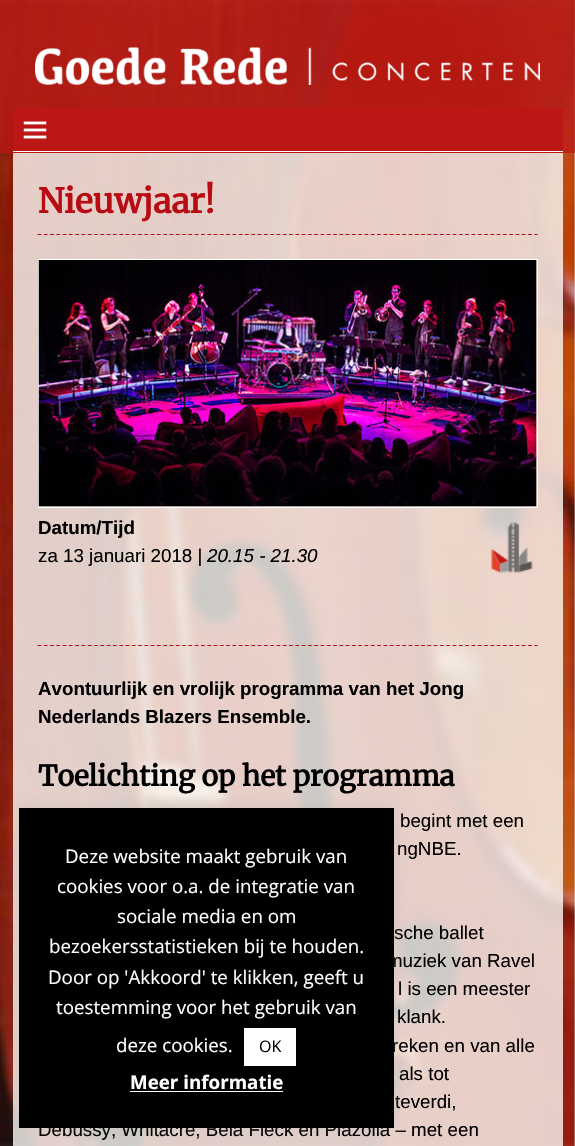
void draw(SkCanvas* canvas) {
	SkPaint paint;
	paint.setAntiAlias(true);
	auto svgPath = [&](const char* data, bool evenOdd = false) {
		SkPath result = *SkParsePath::FromSVGString(data);
		if (evenOdd) result.setFillType(SkPathFillType::kEvenOdd);
		return result;
	};
	canvas->clear(0xffffffff);
	canvas->drawImageRect(SkImages::DeferredFromEncodedData(SkData::MakeFromFileName("img1.png")), SkRect::MakeXYWH(0, 0, 575, 1146), SkSamplingOptions());
	paint.setColor(0xb3bd1616);
	canvas->drawRect(SkRect::MakeXYWH(0, 0, 575, 153), paint);
	canvas->drawImageRect(SkImages::DeferredFromEncodedData(SkData::MakeFromFileName("img2.png")), SkRect::MakeXYWH(35, 47, 505, 38), SkSamplingOptions());
	paint.setColor(0xffbd1616);
	canvas->drawRect(SkRect::MakeXYWH(13, 108, 550, 45), paint);
	paint.setColor(0xffffffff);
	canvas->drawRect(SkRect::MakeXYWH(13, 151, 550, 1), paint);
	canvas->drawImageRect(SkImages::DeferredFromEncodedData(SkData::MakeFromFileName("img3.png")), SkRect::MakeXYWH(23, 121, 24, 18), SkSamplingOptions());
	paint.setColor(0xccfafaf6);
	canvas->drawRect(SkRect::MakeXYWH(13, 153, 550, 993), paint);
	paint.setStroke(true);
	paint.setStrokeWidth(1.2);
	paint.setColor(0xffb80b14);
	paint.setPathEffect(SkDashPathEffect::Make({{3.75f, 2.54f}}, 0));
	canvas->drawPath(svgPath("M37.5 234.5H537.5"), paint);
	paint.setPathEffect(nullptr);
	SkFont f1(fontMgr->matchFamilyStyle("Merriweather", SkFontStyle::Bold()), 33.75);
	f1.setSubpixel(true);
	paint.setStroke(false);
	canvas->drawString("Nieuwjaar!", 38, 213, f1, paint);
	paint.setStroke(true);
	paint.setStrokeWidth(1);
	paint.setColor(0xffffffff);
	canvas->drawRect(SkRect::MakeXYWH(38.5, 259.5, 499, 248), paint);
	canvas->drawImageRect(SkImages::DeferredFromEncodedData(SkData::MakeFromFileName("img4.png")), SkRect::MakeXYWH(38, 260, 499, 247), SkSamplingOptions());
	paint.setStrokeWidth(1.2);
	paint.setColor(0xffb80b14);
	paint.setPathEffect(SkDashPathEffect::Make({{3.75f, 2.54f}}, 0));
	canvas->drawPath(svgPath("M37.5 645.5H537.5"), paint);
	paint.setPathEffect(nullptr);
	SkFont f2(fontMgr->matchFamilyStyle("Liberation Sans", SkFontStyle::Bold()), 18.75);
	f2.setSubpixel(true);
	paint.setStroke(false);
	paint.setColor(0xff000000);
	canvas->drawString("Datum/Tijd", 38, 534, f2, paint);
	canvas->drawImageRect(SkImages::DeferredFromEncodedData(SkData::MakeFromFileName("img5.png")), SkRect::MakeXYWH(491, 522, 42, 51), SkSamplingOptions());
	SkFont f3(fontMgr->matchFamilyStyle("Liberation Sans", SkFontStyle::Normal()), 18.75);
	f3.setSubpixel(true);
	canvas->drawString("za 13 januari 2018 |", 38, 562, f3, paint);
	SkFont f4(fontMgr->matchFamilyStyle("Liberation Sans", SkFontStyle::Italic()), 18.75);
	f4.setSubpixel(true);
	canvas->drawString("20.15 - 21.30", 207, 562, f4, paint);
	canvas->drawString("Avontuurlijk en vrolijk programma van het Jong", 38, 695, f2, paint);
	canvas->drawString("Nederlands Blazers Ensemble.", 38, 723, f2, paint);
	SkFont f5(fontMgr->matchFamilyStyle("Merriweather", SkFontStyle::Bold()), 28.1);
	f5.setSubpixel(true);
	canvas->drawString("Toelichting op het programma", 38, 786, f5, paint);
	canvas->drawString("begint met een", 400, 827, f3, paint);
	canvas->drawString("ngNBE.", 397, 855, f3, paint);
	canvas->drawString("sche ballet", 394, 939, f3, paint);
	canvas->drawString("muziek van Ravel", 387, 967, f3, paint);
	canvas->drawString("l is een meester", 398, 995, f3, paint);
	canvas->drawString("klank.", 397, 1023, f3, paint);
	canvas->drawString("reken en van alle", 392, 1052, f3, paint);
	canvas->drawString("als tot", 399, 1080, f3, paint);
	canvas->drawString("teverdi,", 395, 1108, f3, paint);
	canvas->drawString("Debussy, Whitacre, Bela Fleck en Piazolla – met een", 38, 1136, f3, paint);
	paint.setColor(0x4dacabab);
	paint.setMaskFilter(SkMaskFilter::MakeBlur(kNormal_SkBlurStyle, 6));
	canvas->drawRect(SkRect::MakeXYWH(19, 806, 375, 320), paint);
	paint.setMaskFilter(nullptr);
	paint.setColor(0xff000000);
	canvas->drawRect(SkRect::MakeXYWH(19, 808, 375, 320), paint);
	SkFont f6(fontMgr->matchFamilyStyle("Open Sans", SkFontStyle::Normal()), 18.75);
	f6.setSubpixel(true);
	paint.setColor(0xffffffff);
	canvas->drawString("Deze website maakt gebruik van", 65, 863, f6, paint);
	canvas->drawString("cookies voor o.a. de integratie van", 57, 893, f6, paint);
	canvas->drawString("sociale media en om", 117, 923, f6, paint);
	canvas->drawString("bezoekersstatistieken bij te houden.", 49, 953, f6, paint);
	canvas->drawString("Door op 'Akkoord' te klikken, geeft u", 48, 984, f6, paint);
	canvas->drawString("toestemming voor het gebruik van", 56, 1014, f6, paint);
	canvas->drawString("deze cookies.", 116, 1052, f6, paint);
	canvas->drawRect(SkRect::MakeXYWH(244, 1028, 52, 38), paint);
	SkFont f7(fontMgr->matchFamilyStyle("Open Sans", SkFontStyle::Normal()), 16);
	f7.setSubpixel(true);
	paint.setColor(0xff000000);
	canvas->drawString("OK", 259, 1052, f7, paint);
	SkFont f8(fontMgr->matchFamilyStyle("Open Sans", SkFontStyle::Bold()), 18.75);
	f8.setSubpixel(true);
	paint.setColor(0xffffffff);
	canvas->drawString("Meer informatie", 130, 1089, f8, paint);
	canvas->drawRect(SkRect::MakeXYWH(130, 1091, 153, 1), paint);
}
